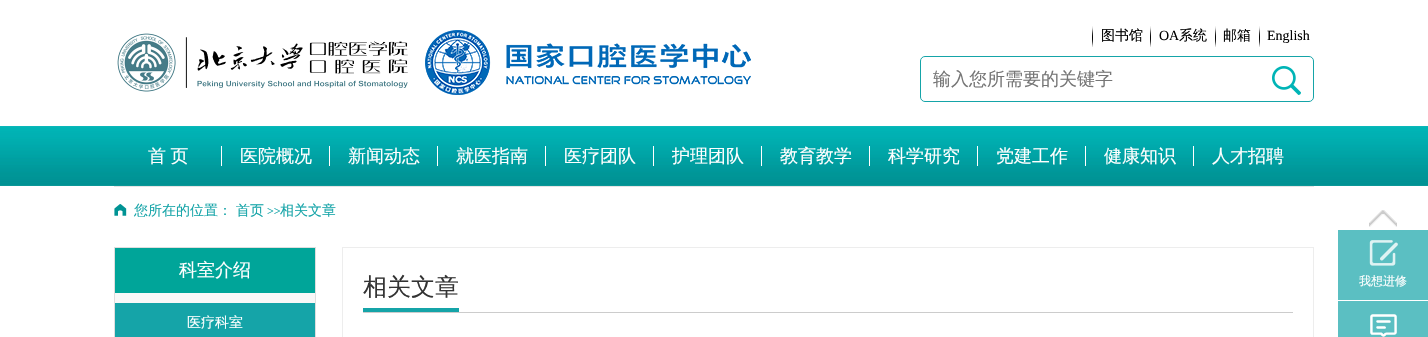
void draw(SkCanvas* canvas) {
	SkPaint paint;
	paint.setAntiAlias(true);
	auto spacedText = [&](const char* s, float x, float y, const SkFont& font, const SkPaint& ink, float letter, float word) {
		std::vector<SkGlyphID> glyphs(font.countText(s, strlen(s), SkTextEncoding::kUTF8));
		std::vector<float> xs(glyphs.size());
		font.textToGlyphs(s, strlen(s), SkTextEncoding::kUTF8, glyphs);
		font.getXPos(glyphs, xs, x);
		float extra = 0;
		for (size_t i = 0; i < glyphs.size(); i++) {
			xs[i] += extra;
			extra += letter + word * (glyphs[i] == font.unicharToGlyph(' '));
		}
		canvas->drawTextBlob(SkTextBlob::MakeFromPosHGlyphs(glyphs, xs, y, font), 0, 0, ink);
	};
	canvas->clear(0xffffffff);
	canvas->drawImageRect(SkImages::DeferredFromEncodedData(SkData::MakeFromFileName("img1.png")), SkRect::MakeXYWH(117, 33, 291, 59), SkSamplingOptions());
	canvas->drawImageRect(SkImages::DeferredFromEncodedData(SkData::MakeFromFileName("img2.png")), SkRect::MakeXYWH(425, 30, 326, 65), SkSamplingOptions());
	canvas->drawImageRect(SkImages::DeferredFromEncodedData(SkData::MakeFromFileName("img3.png")), SkRect::MakeXYWH(1092, 26, 1, 21), SkSamplingOptions());
	SkFont f1(fontMgr->matchFamilyStyle("WenQuanYi Zen Hei", SkFontStyle(500, SkFontStyle::kNormal_Width, SkFontStyle::kUpright_Slant)), 14);
	f1.setSubpixel(true);
	paint.setColor(0xff000000);
	canvas->drawString("图书馆", 1101, 40, f1, paint);
	canvas->drawImageRect(SkImages::DeferredFromEncodedData(SkData::MakeFromFileName("img3.png")), SkRect::MakeXYWH(1150, 26, 1, 21), SkSamplingOptions());
	SkFont f2(fontMgr->matchFamilyStyle("Liberation Serif", SkFontStyle::Normal()), 14);
	f2.setSubpixel(true);
	canvas->drawString("OA", 1159, 40, f2, paint);
	canvas->drawString("系统", 1179, 40, f1, paint);
	canvas->drawImageRect(SkImages::DeferredFromEncodedData(SkData::MakeFromFileName("img3.png")), SkRect::MakeXYWH(1215, 26, 1, 21), SkSamplingOptions());
	canvas->drawString("邮箱", 1223, 40, f1, paint);
	canvas->drawImageRect(SkImages::DeferredFromEncodedData(SkData::MakeFromFileName("img3.png")), SkRect::MakeXYWH(1259, 26, 1, 21), SkSamplingOptions());
	canvas->drawString("English", 1267, 40, f2, paint);
	paint.setStroke(true);
	paint.setStrokeWidth(1);
	paint.setColor(0xff15a4a8);
	canvas->drawRoundRect(SkRect::MakeXYWH(920.5, 56.5, 393, 45), 4.5, 4.5, paint);
	SkFont f3(fontMgr->matchFamilyStyle("WenQuanYi Zen Hei", SkFontStyle(500, SkFontStyle::kNormal_Width, SkFontStyle::kUpright_Slant)), 18);
	f3.setSubpixel(true);
	paint.setStroke(false);
	paint.setColor(0xff757575);
	canvas->drawString("输入您所需要的关键字", 933, 85, f3, paint);
	canvas->drawImageRect(SkImages::DeferredFromEncodedData(SkData::MakeFromFileName("img4.png")), SkRect::MakeXYWH(1272, 66, 29, 29), SkSamplingOptions());
	canvas->drawImageRect(SkImages::DeferredFromEncodedData(SkData::MakeFromFileName("img5.png")), SkRect::MakeXYWH(0, 126, 1428, 60), SkSamplingOptions());
	paint.setColor(0xffe5e5e5);
	canvas->drawRect(SkRect::MakeXYWH(114, 186, 1200, 1), paint);
	paint.setColor(0xffffffff);
	canvas->drawRect(SkRect::MakeXYWH(221, 146, 1, 20), paint);
	spacedText("首 页", 148, 162, f3, paint, 0, -1);
	canvas->drawRect(SkRect::MakeXYWH(329, 146, 1, 20), paint);
	canvas->drawString("医院概况", 240, 162, f3, paint);
	canvas->drawRect(SkRect::MakeXYWH(437, 146, 1, 20), paint);
	canvas->drawString("新闻动态", 348, 162, f3, paint);
	canvas->drawRect(SkRect::MakeXYWH(545, 146, 1, 20), paint);
	canvas->drawString("就医指南", 456, 162, f3, paint);
	canvas->drawRect(SkRect::MakeXYWH(653, 146, 1, 20), paint);
	canvas->drawString("医疗团队", 564, 162, f3, paint);
	canvas->drawRect(SkRect::MakeXYWH(761, 146, 1, 20), paint);
	canvas->drawString("护理团队", 672, 162, f3, paint);
	canvas->drawRect(SkRect::MakeXYWH(869, 146, 1, 20), paint);
	canvas->drawString("教育教学", 780, 162, f3, paint);
	canvas->drawRect(SkRect::MakeXYWH(977, 146, 1, 20), paint);
	canvas->drawString("科学研究", 888, 162, f3, paint);
	canvas->drawRect(SkRect::MakeXYWH(1085, 146, 1, 20), paint);
	canvas->drawString("党建工作", 996, 162, f3, paint);
	canvas->drawRect(SkRect::MakeXYWH(1193, 146, 1, 20), paint);
	canvas->drawString("健康知识", 1104, 162, f3, paint);
	canvas->drawString("人才招聘", 1212, 162, f3, paint);
	canvas->drawImageRect(SkImages::DeferredFromEncodedData(SkData::MakeFromFileName("img6.png")), SkRect::MakeXYWH(114, 204, 13, 12), SkSamplingOptions());
	paint.setColor(0xff15a4a8);
	canvas->drawString("您所在的位置：", 134, 215, f1, paint);
	canvas->drawString("首页", 236, 215, f1, paint);
	SkFont f4(fontMgr->matchFamilyStyle("Liberation Serif", SkFontStyle::Normal()), 12);
	f4.setSubpixel(true);
	canvas->drawString(">>", 267, 215, f4, paint);
	canvas->drawString("相关文章", 280, 215, f1, paint);
	paint.setStroke(true);
	paint.setColor(0xffdedede);
	canvas->drawRect(SkRect::MakeXYWH(114.5, 247.5, 201, 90), paint);
	paint.setStroke(false);
	paint.setColor(0xfff8f8f8);
	canvas->drawRect(SkRect::MakeXYWH(115, 293, 200, 10), paint);
	paint.setColor(0xff00a599);
	canvas->drawRect(SkRect::MakeXYWH(115, 248, 200, 45), paint);
	paint.setColor(0xffffffff);
	canvas->drawString("科室介绍", 179, 276, f3, paint);
	paint.setColor(0xff15a4a8);
	canvas->drawRect(SkRect::MakeXYWH(115, 303, 200, 34), paint);
	paint.setColor(0xffffffff);
	canvas->drawString("医疗科室", 187, 327, f1, paint);
	paint.setStroke(true);
	paint.setColor(0xffededed);
	canvas->drawRect(SkRect::MakeXYWH(342.5, 247.5, 971, 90), paint);
	paint.setStroke(false);
	paint.setColor(0xffcccccc);
	canvas->drawRect(SkRect::MakeXYWH(363, 312, 930, 1), paint);
	SkFont f5(fontMgr->matchFamilyStyle("WenQuanYi Zen Hei", SkFontStyle(500, SkFontStyle::kNormal_Width, SkFontStyle::kUpright_Slant)), 24);
	f5.setSubpixel(true);
	paint.setColor(0xff333333);
	canvas->drawString("相关文章", 363, 295, f5, paint);
	paint.setColor(0xff15a4a8);
	canvas->drawRect(SkRect::MakeXYWH(363, 308, 96, 4), paint);
	canvas->drawImageRect(SkImages::DeferredFromEncodedData(SkData::MakeFromFileName("img7.png")), SkRect::MakeXYWH(1369, 210, 28, 17), SkSamplingOptions());
	paint.setColor(0xff5bbfc2);
	canvas->drawRect(SkRect::MakeXYWH(1338, 230, 90, 70), paint);
	canvas->drawImageRect(SkImages::DeferredFromEncodedData(SkData::MakeFromFileName("img8.png")), SkRect::MakeXYWH(1369, 240, 29, 26), SkSamplingOptions());
	SkFont f6(fontMgr->matchFamilyStyle("WenQuanYi Zen Hei", SkFontStyle(500, SkFontStyle::kNormal_Width, SkFontStyle::kUpright_Slant)), 12);
	f6.setSubpixel(true);
	paint.setColor(0xffffffff);
	canvas->drawString("我想进修", 1359, 285, f6, paint);
	paint.setColor(0xff5bbfc2);
	canvas->drawRect(SkRect::MakeXYWH(1338, 301, 90, 36), paint);
	canvas->drawImageRect(SkImages::DeferredFromEncodedData(SkData::MakeFromFileName("img9.png")), SkRect::MakeXYWH(1370, 314, 27, 23), SkSamplingOptions());
}
